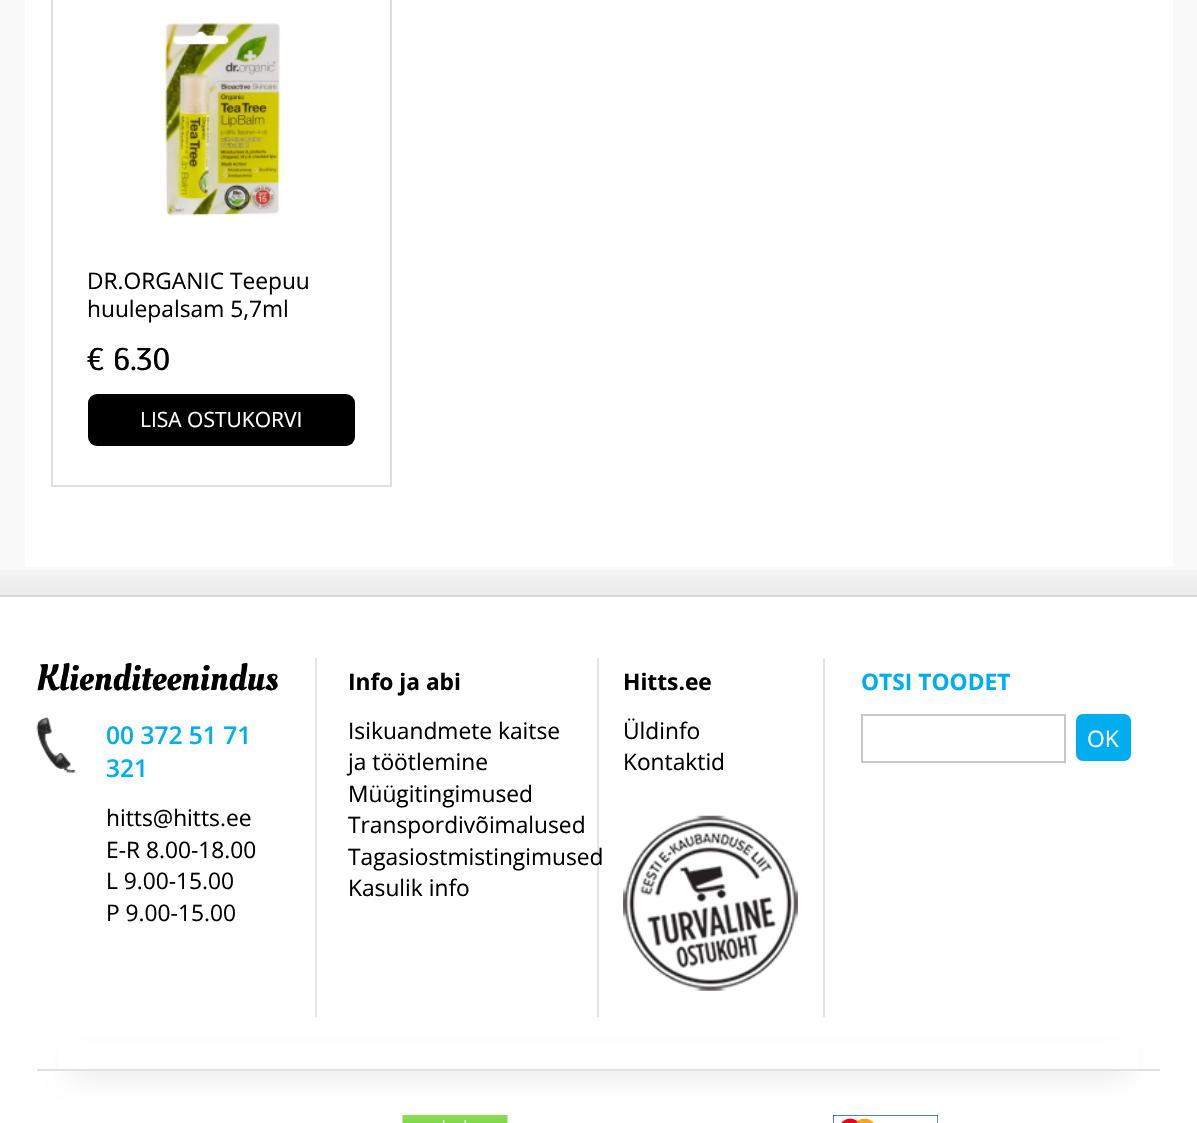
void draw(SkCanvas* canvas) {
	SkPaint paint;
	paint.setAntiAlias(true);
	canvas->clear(0xffffffff);
	paint.setColor(0xfff9f9f9);
	canvas->drawRect(SkRect::MakeXYWH(0, 0, 1197, 595), paint);
	paint.setColor(0xffe1e1e1);
	canvas->drawRect(SkRect::MakeXYWH(0, 595, 1197, 2), paint);
	paint.setColor(0xffffffff);
	canvas->drawRect(SkRect::MakeXYWH(25, 0, 1148, 567), paint);
	paint.setStroke(true);
	paint.setStrokeWidth(2);
	paint.setColor(0xffdfdfdf);
	canvas->drawRect(SkRect::MakeXYWH(52, -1, 339, 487), paint);
	canvas->drawImageRect(SkImages::DeferredFromEncodedData(SkData::MakeFromFileName("img1.png")), SkRect::MakeXYWH(164, 22, 118, 195), SkSamplingOptions());
	SkFont f1(fontMgr->matchFamilyStyle("Open Sans", SkFontStyle::Normal()), 22.75);
	f1.setSubpixel(true);
	paint.setStroke(false);
	paint.setColor(0xff000000);
	canvas->drawString("DR.ORGANIC Teepuu", 87, 289, f1, paint);
	canvas->drawString("huulepalsam 5,7ml", 87, 317, f1, paint);
	SkFont f2(fontMgr->matchFamilyStyle("Scada", SkFontStyle::Normal()), 31.5);
	f2.setSubpixel(true);
	canvas->drawString("€ 6.30", 87, 370, f2, paint);
	canvas->drawRoundRect(SkRect::MakeXYWH(88, 394, 267, 52), 9, 9, paint);
	SkFont f3(fontMgr->matchFamilyStyle("Open Sans", SkFontStyle::Normal()), 21);
	f3.setSubpixel(true);
	paint.setColor(0xffffffff);
	canvas->drawString("LISA OSTUKORVI", 140, 427, f3, paint);
	canvas->drawImageRect(SkImages::DeferredFromEncodedData(SkData::MakeFromFileName("img2.png")), SkRect::MakeXYWH(0, 570, 1197, 27), SkSamplingOptions());
	paint.setColor(0x33000000);
	paint.setMaskFilter(SkMaskFilter::MakeBlur(kNormal_SkBlurStyle, 14));
	canvas->drawRect(SkRect::MakeXYWH(70, 1062, 1057, 9), paint);
	paint.setMaskFilter(nullptr);
	paint.setColor(0xffffffff);
	canvas->drawRect(SkRect::MakeXYWH(58, 1041, 1081, 28), paint);
	paint.setColor(0xffe1e1e1);
	canvas->drawRect(SkRect::MakeXYWH(37, 1069, 1123, 2), paint);
	paint.setColor(0xffe5e5e5);
	canvas->drawRect(SkRect::MakeXYWH(315, 658, 2, 359), paint);
	SkFont f4(fontMgr->matchFamilyStyle("Oleo Script", SkFontStyle::Normal()), 36.75);
	f4.setSubpixel(true);
	paint.setColor(0xff000000);
	canvas->drawString("Klienditeenindus", 36, 690, f4, paint);
	canvas->drawImageRect(SkImages::DeferredFromEncodedData(SkData::MakeFromFileName("img3.png")), SkRect::MakeXYWH(36, 717, 40, 57), SkSamplingOptions());
	SkFont f5(fontMgr->matchFamilyStyle("Open Sans", SkFontStyle(600, SkFontStyle::kNormal_Width, SkFontStyle::kUpright_Slant)), 24.5);
	f5.setSubpixel(true);
	paint.setColor(0xff00aeef);
	canvas->drawString("00 372 51 71", 106, 744, f5, paint);
	canvas->drawString("321", 106, 777, f5, paint);
	paint.setColor(0xff000000);
	canvas->drawString("hitts@hitts.ee", 106, 826, f1, paint);
	canvas->drawString("E-R 8.00-18.00", 106, 858, f1, paint);
	canvas->drawString("L 9.00-15.00", 106, 889, f1, paint);
	canvas->drawString("P 9.00-15.00", 106, 921, f1, paint);
	paint.setColor(0xffe5e5e5);
	canvas->drawRect(SkRect::MakeXYWH(597, 658, 2, 359), paint);
	SkFont f6(fontMgr->matchFamilyStyle("Open Sans", SkFontStyle::Bold()), 22.75);
	f6.setSubpixel(true);
	paint.setColor(0xff000000);
	canvas->drawString("Info ja abi", 348, 690, f6, paint);
	canvas->drawString("Isikuandmete kaitse", 348, 739, f1, paint);
	canvas->drawString("ja töötlemine", 348, 770, f1, paint);
	canvas->drawString("Müügitingimused", 348, 802, f1, paint);
	canvas->drawString("Transpordivõimalused", 348, 833, f1, paint);
	canvas->drawString("Tagasiostmistingimused", 348, 865, f1, paint);
	canvas->drawString("Kasulik info", 348, 896, f1, paint);
	paint.setColor(0xffe5e5e5);
	canvas->drawRect(SkRect::MakeXYWH(823, 658, 2, 359), paint);
	paint.setColor(0xff000000);
	canvas->drawString("Hitts.ee", 623, 690, f6, paint);
	canvas->drawString("Üldinfo", 623, 739, f1, paint);
	canvas->drawString("Kontaktid", 623, 770, f1, paint);
	canvas->drawImageRect(SkImages::DeferredFromEncodedData(SkData::MakeFromFileName("img4.png")), SkRect::MakeXYWH(623, 815, 175, 176), SkSamplingOptions());
	paint.setColor(0xff00aeef);
	canvas->drawString("OTSI TOODET", 861, 690, f6, paint);
	paint.setStroke(true);
	paint.setColor(0xffc8c8c8);
	canvas->drawRect(SkRect::MakeXYWH(862, 715, 203, 47), paint);
	paint.setStroke(false);
	paint.setColor(0xff00aeef);
	canvas->drawRoundRect(SkRect::MakeXYWH(1076, 714, 55, 47), 7, 7, paint);
	paint.setColor(0xffffffff);
	canvas->drawString("OK", 1087, 747, f1, paint);
	canvas->drawImageRect(SkImages::DeferredFromEncodedData(SkData::MakeFromFileName("img5.png")), SkRect::MakeXYWH(402, 1115, 106, 8), SkSamplingOptions());
	canvas->drawImageRect(SkImages::DeferredFromEncodedData(SkData::MakeFromFileName("img6.png")), SkRect::MakeXYWH(833, 1115, 105, 8), SkSamplingOptions());
}
